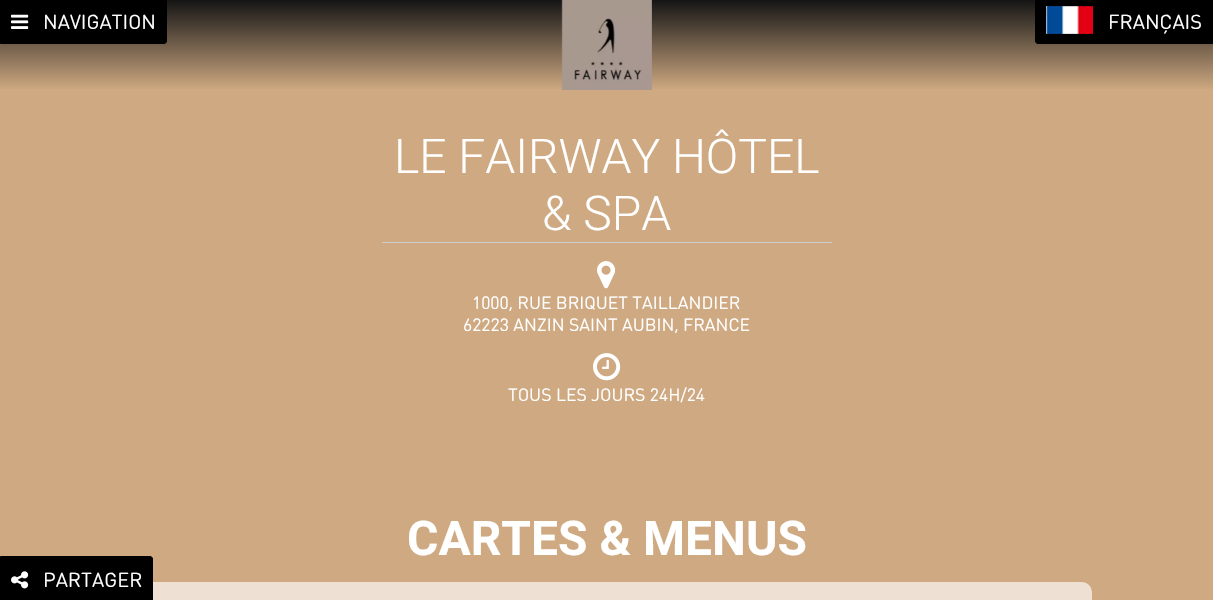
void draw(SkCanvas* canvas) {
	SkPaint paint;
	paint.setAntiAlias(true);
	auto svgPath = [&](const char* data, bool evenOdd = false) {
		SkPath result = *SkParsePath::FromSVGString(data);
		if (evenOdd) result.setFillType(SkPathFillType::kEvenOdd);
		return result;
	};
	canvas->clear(0xffcea981);
	{
		const SkColor colors[] = {0xffcea981, 0xff151515};
		const float stops[] = {0, 1};
		const SkPoint ends[] = {{607, 90}, {607, 0}};
		paint.setShader(SkGradientShader::MakeLinear(ends, colors, stops, 2, SkTileMode::kClamp));
		paint.setAlpha(255);
	}
	canvas->drawRect(SkRect::MakeXYWH(0, 0, 1213, 89), paint);
	canvas->drawImageRect(SkImages::DeferredFromEncodedData(SkData::MakeFromFileName("img1.png")), SkRect::MakeXYWH(561, 0, 91, 90), SkSamplingOptions());
	paint.setShader(nullptr);
	paint.setColor(0xff000000);
	canvas->drawPath(svgPath("M.5-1.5H166.5V41C166.5 42.5 165.5 43.5 164 43.5H.5Z"), paint);
	paint.setStroke(true);
	paint.setStrokeWidth(1);
	canvas->drawPath(svgPath("M.5-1.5H166.5V41C166.5 42.5 165.5 43.5 164 43.5H.5Z"), paint);
	canvas->drawImageRect(SkImages::DeferredFromEncodedData(SkData::MakeFromFileName("img2.png")), SkRect::MakeXYWH(11, 14, 18, 15), SkSamplingOptions());
	SkFont f1(fontMgr->matchFamilyStyle("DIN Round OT", SkFontStyle::Normal()), 20);
	f1.setSubpixel(true);
	paint.setStroke(false);
	paint.setColor(0xffffffff);
	canvas->drawString("NAVIGATION", 43, 29, f1, paint);
	paint.setColor(0xff000000);
	canvas->drawPath(svgPath("M1035.5-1.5H1212.5V43.5H1038C1036.5 43.5 1035.5 42.5 1035.5 41Z"), paint);
	paint.setStroke(true);
	canvas->drawPath(svgPath("M1035.5-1.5H1212.5V43.5H1038C1036.5 43.5 1035.5 42.5 1035.5 41Z"), paint);
	canvas->drawImageRect(SkImages::DeferredFromEncodedData(SkData::MakeFromFileName("img3.png")), SkRect::MakeXYWH(1046, 6, 47, 28), SkSamplingOptions());
	paint.setStroke(false);
	paint.setColor(0xffffffff);
	canvas->drawString("FRANÇAIS", 1108, 29, f1, paint);
	paint.setColor(0xffeee1d3);
	canvas->drawRoundRect(SkRect::MakeXYWH(121, 582, 971, 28), 10, 10, paint);
	paint.setColor(0xff000000);
	canvas->drawPath(svgPath("M.5 556.5H150C151.5 556.5 152.5 557.5 152.5 559V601.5H.5Z"), paint);
	paint.setStroke(true);
	canvas->drawPath(svgPath("M.5 556.5H150C151.5 556.5 152.5 557.5 152.5 559V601.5H.5Z"), paint);
	canvas->drawImageRect(SkImages::DeferredFromEncodedData(SkData::MakeFromFileName("img4.png")), SkRect::MakeXYWH(11, 571, 18, 18), SkSamplingOptions());
	paint.setStroke(false);
	paint.setColor(0xffffffff);
	canvas->drawString("PARTAGER", 43, 587, f1, paint);
	paint.setColor(0xffcccccc);
	canvas->drawRect(SkRect::MakeXYWH(382, 242, 450, 1), paint);
	SkFont f2(fontMgr->matchFamilyStyle("Roboto", SkFontStyle(300, SkFontStyle::kNormal_Width, SkFontStyle::kUpright_Slant)), 48);
	f2.setSubpixel(true);
	paint.setColor(0xffffffff);
	canvas->drawString("LE FAIRWAY HÔTEL", 394, 173, f2, paint);
	canvas->drawString("& SPA", 542, 230, f2, paint);
	canvas->drawImageRect(SkImages::DeferredFromEncodedData(SkData::MakeFromFileName("img5.png")), SkRect::MakeXYWH(597, 261, 19, 28), SkSamplingOptions());
	SkFont f3(fontMgr->matchFamilyStyle("DIN Round OT", SkFontStyle::Normal()), 17.6);
	f3.setSubpixel(true);
	canvas->drawString("1000, RUE BRIQUET TAILLANDIER", 472, 309, f3, paint);
	canvas->drawString("62223 ANZIN SAINT AUBIN, FRANCE", 463, 331, f3, paint);
	canvas->drawImageRect(SkImages::DeferredFromEncodedData(SkData::MakeFromFileName("img6.png")), SkRect::MakeXYWH(593, 353, 28, 28), SkSamplingOptions());
	canvas->drawString("TOUS LES JOURS 24H/24", 508, 401, f3, paint);
	SkFont f4(fontMgr->matchFamilyStyle("Roboto", SkFontStyle::Bold()), 48);
	f4.setSubpixel(true);
	canvas->drawString("CARTES & MENUS", 407, 555, f4, paint);
}
